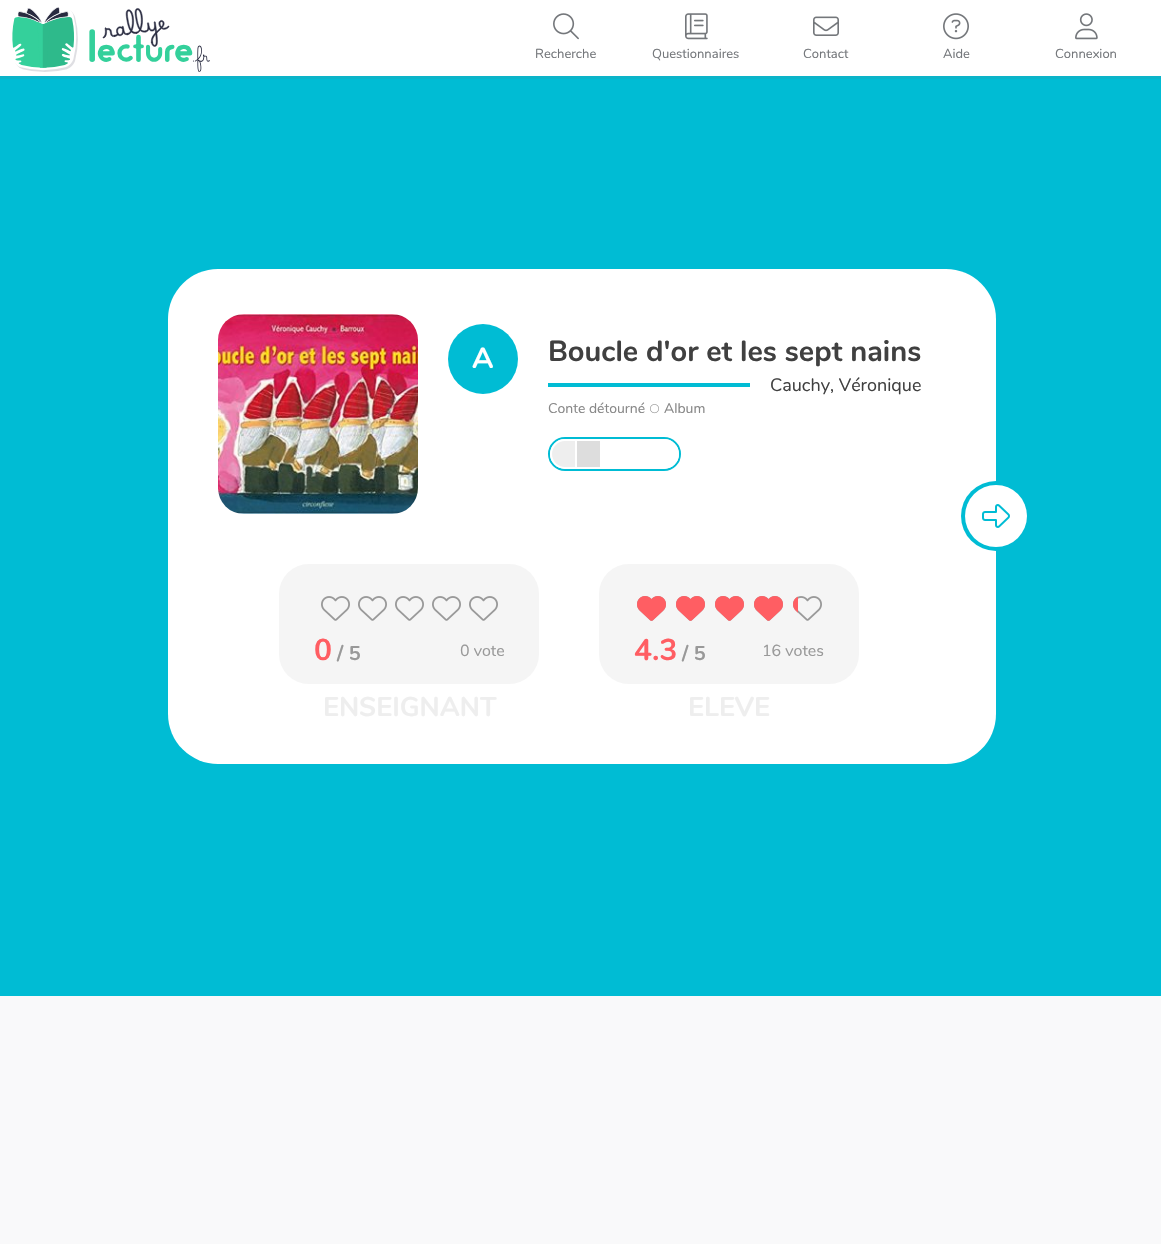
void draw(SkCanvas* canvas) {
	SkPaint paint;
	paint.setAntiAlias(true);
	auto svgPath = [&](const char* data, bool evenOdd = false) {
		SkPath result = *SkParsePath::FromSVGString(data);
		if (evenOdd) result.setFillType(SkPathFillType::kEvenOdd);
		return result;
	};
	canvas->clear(0xfff9f9fa);
	paint.setColor(0xff0bb4c9);
	canvas->drawRect(SkRect::MakeXYWH(0, 76, 1161, 3), paint);
	paint.setColor(0xffffffff);
	canvas->drawRect(SkRect::MakeXYWH(0, 0, 1161, 76), paint);
	canvas->drawImageRect(SkImages::DeferredFromEncodedData(SkData::MakeFromFileName("img1.png")), SkRect::MakeXYWH(12, 7, 198, 65), SkSamplingOptions());
	canvas->drawImageRect(SkImages::DeferredFromEncodedData(SkData::MakeFromFileName("img2.png")), SkRect::MakeXYWH(553, 13, 26, 27), SkSamplingOptions());
	SkFont f1(fontMgr->matchFamilyStyle("Nunito", SkFontStyle::Normal()), 13);
	f1.setSubpixel(true);
	paint.setColor(0xff74777b);
	canvas->drawString("Recherche", 535, 58, f1, paint);
	canvas->drawImageRect(SkImages::DeferredFromEncodedData(SkData::MakeFromFileName("img3.png")), SkRect::MakeXYWH(685, 13, 23, 27), SkSamplingOptions());
	canvas->drawString("Questionnaires", 652, 58, f1, paint);
	canvas->drawImageRect(SkImages::DeferredFromEncodedData(SkData::MakeFromFileName("img4.png")), SkRect::MakeXYWH(813, 16, 26, 20), SkSamplingOptions());
	canvas->drawString("Contact", 803, 58, f1, paint);
	canvas->drawImageRect(SkImages::DeferredFromEncodedData(SkData::MakeFromFileName("img5.png")), SkRect::MakeXYWH(943, 13, 26, 27), SkSamplingOptions());
	canvas->drawString("Aide", 943, 58, f1, paint);
	canvas->drawImageRect(SkImages::DeferredFromEncodedData(SkData::MakeFromFileName("img6.png")), SkRect::MakeXYWH(1075, 13, 23, 27), SkSamplingOptions());
	canvas->drawString("Connexion", 1055, 58, f1, paint);
	paint.setColor(0xff00bcd4);
	canvas->drawRect(SkRect::MakeXYWH(0, 79, 1161, 917), paint);
	paint.setColor(0xffffffff);
	canvas->drawRoundRect(SkRect::MakeXYWH(168, 269, 828, 495), 50, 50, paint);
	canvas->drawImageRect(SkImages::DeferredFromEncodedData(SkData::MakeFromFileName("img7.png")), SkRect::MakeXYWH(218, 314, 200, 200), SkSamplingOptions());
	paint.setColor(0xff00bcd4);
	canvas->drawCircle(483, 359, 35, paint);
	SkFont f2(fontMgr->matchFamilyStyle("Nunito", SkFontStyle::Bold()), 29);
	f2.setSubpixel(true);
	paint.setColor(0xffffffff);
	canvas->drawString("A", 472, 368, f2, paint);
	paint.setColor(0xff404040);
	canvas->drawString("Boucle d'or et les sept nains", 548, 361, f2, paint);
	paint.setColor(0xff00bcd4);
	canvas->drawRect(SkRect::MakeXYWH(548, 383, 202, 4), paint);
	SkFont f3(fontMgr->matchFamilyStyle("Nunito", SkFontStyle::Normal()), 18);
	f3.setSubpixel(true);
	paint.setColor(0xff404040);
	canvas->drawString("Cauchy, Véronique", 770, 391, f3, paint);
	SkFont f4(fontMgr->matchFamilyStyle("Nunito", SkFontStyle::Normal()), 14);
	f4.setSubpixel(true);
	paint.setColor(0xff888888);
	canvas->drawString("Conte détourné", 548, 413, f4, paint);
	canvas->drawImageRect(SkImages::DeferredFromEncodedData(SkData::MakeFromFileName("img8.png")), SkRect::MakeXYWH(650, 404, 9, 10), SkSamplingOptions());
	canvas->drawString("Album", 664, 413, f4, paint);
	paint.setStroke(true);
	paint.setStrokeWidth(2);
	paint.setColor(0xff00bcd4);
	canvas->drawRoundRect(SkRect::MakeXYWH(549, 438, 131, 32), 16, 16, paint);
	paint.setColor(0xffffffff);
	canvas->drawRoundRect(SkRect::MakeXYWH(551, 440, 127, 28), 14, 14, paint);
	paint.setStroke(false);
	paint.setColor(0xffeeeeee);
	canvas->drawPath(svgPath("M565 441H577V467H565C558 467 552 461 552 454C552 447 558 441 565 441Z"), paint);
	paint.setColor(0xffffffff);
	canvas->drawRect(SkRect::MakeXYWH(575, 441, 2, 26), paint);
	paint.setColor(0xffdddddd);
	canvas->drawRect(SkRect::MakeXYWH(577, 441, 23, 26), paint);
	paint.setColor(0xff00bcd4);
	canvas->drawCircle(996, 516, 35, paint);
	paint.setColor(0xffffffff);
	canvas->drawCircle(996, 516, 31, paint);
	canvas->drawImageRect(SkImages::DeferredFromEncodedData(SkData::MakeFromFileName("img9.png")), SkRect::MakeXYWH(982, 504, 28, 24), SkSamplingOptions());
	paint.setColor(0xfff5f5f5);
	canvas->drawRoundRect(SkRect::MakeXYWH(279, 564, 260, 120), 30, 30, paint);
	canvas->drawImageRect(SkImages::DeferredFromEncodedData(SkData::MakeFromFileName("img10.png")), SkRect::MakeXYWH(321, 596, 29, 25), SkSamplingOptions());
	canvas->drawImageRect(SkImages::DeferredFromEncodedData(SkData::MakeFromFileName("img10.png")), SkRect::MakeXYWH(358, 596, 29, 25), SkSamplingOptions());
	canvas->drawImageRect(SkImages::DeferredFromEncodedData(SkData::MakeFromFileName("img10.png")), SkRect::MakeXYWH(395, 596, 29, 25), SkSamplingOptions());
	canvas->drawImageRect(SkImages::DeferredFromEncodedData(SkData::MakeFromFileName("img10.png")), SkRect::MakeXYWH(432, 596, 29, 25), SkSamplingOptions());
	canvas->drawImageRect(SkImages::DeferredFromEncodedData(SkData::MakeFromFileName("img10.png")), SkRect::MakeXYWH(469, 596, 29, 25), SkSamplingOptions());
	SkFont f5(fontMgr->matchFamilyStyle("Nunito", SkFontStyle::Bold()), 30);
	f5.setSubpixel(true);
	paint.setColor(0xffff5e63);
	canvas->drawString("0", 314, 660, f5, paint);
	SkFont f6(fontMgr->matchFamilyStyle("Nunito", SkFontStyle::Bold()), 20);
	f6.setSubpixel(true);
	paint.setColor(0xff999999);
	canvas->drawString("/ 5", 337, 660, f6, paint);
	SkFont f7(fontMgr->matchFamilyStyle("Nunito", SkFontStyle::Normal()), 16);
	f7.setSubpixel(true);
	canvas->drawString("0 vote", 460, 656, f7, paint);
	SkFont f8(fontMgr->matchFamilyStyle("Nunito", SkFontStyle::Bold()), 27);
	f8.setSubpixel(true);
	paint.setColor(0xffeeeeee);
	canvas->drawString("ENSEIGNANT", 323, 716, f8, paint);
	paint.setColor(0xfff5f5f5);
	canvas->drawRoundRect(SkRect::MakeXYWH(599, 564, 260, 120), 30, 30, paint);
	canvas->drawImageRect(SkImages::DeferredFromEncodedData(SkData::MakeFromFileName("img10.png")), SkRect::MakeXYWH(637, 596, 29, 25), SkSamplingOptions());
	canvas->drawImageRect(SkImages::DeferredFromEncodedData(SkData::MakeFromFileName("img11.png")), SkRect::MakeXYWH(637, 596, 29, 25), SkSamplingOptions());
	canvas->drawImageRect(SkImages::DeferredFromEncodedData(SkData::MakeFromFileName("img10.png")), SkRect::MakeXYWH(676, 596, 29, 25), SkSamplingOptions());
	canvas->drawImageRect(SkImages::DeferredFromEncodedData(SkData::MakeFromFileName("img11.png")), SkRect::MakeXYWH(676, 596, 29, 25), SkSamplingOptions());
	canvas->drawImageRect(SkImages::DeferredFromEncodedData(SkData::MakeFromFileName("img10.png")), SkRect::MakeXYWH(715, 596, 29, 25), SkSamplingOptions());
	canvas->drawImageRect(SkImages::DeferredFromEncodedData(SkData::MakeFromFileName("img11.png")), SkRect::MakeXYWH(715, 596, 29, 25), SkSamplingOptions());
	canvas->drawImageRect(SkImages::DeferredFromEncodedData(SkData::MakeFromFileName("img10.png")), SkRect::MakeXYWH(754, 596, 29, 25), SkSamplingOptions());
	canvas->drawImageRect(SkImages::DeferredFromEncodedData(SkData::MakeFromFileName("img11.png")), SkRect::MakeXYWH(754, 596, 29, 25), SkSamplingOptions());
	canvas->drawImageRect(SkImages::DeferredFromEncodedData(SkData::MakeFromFileName("img10.png")), SkRect::MakeXYWH(793, 596, 29, 25), SkSamplingOptions());
	canvas->drawImageRect(SkImages::DeferredFromEncodedData(SkData::MakeFromFileName("img12.png")), SkRect::MakeXYWH(793, 596, 5, 17), SkSamplingOptions());
	paint.setColor(0xffff5e63);
	canvas->drawString("4.3", 634, 660, f5, paint);
	paint.setColor(0xff999999);
	canvas->drawString("/ 5", 682, 660, f6, paint);
	canvas->drawString("16 votes", 762, 656, f7, paint);
	paint.setColor(0xffeeeeee);
	canvas->drawString("ELEVE", 688, 716, f8, paint);
}
